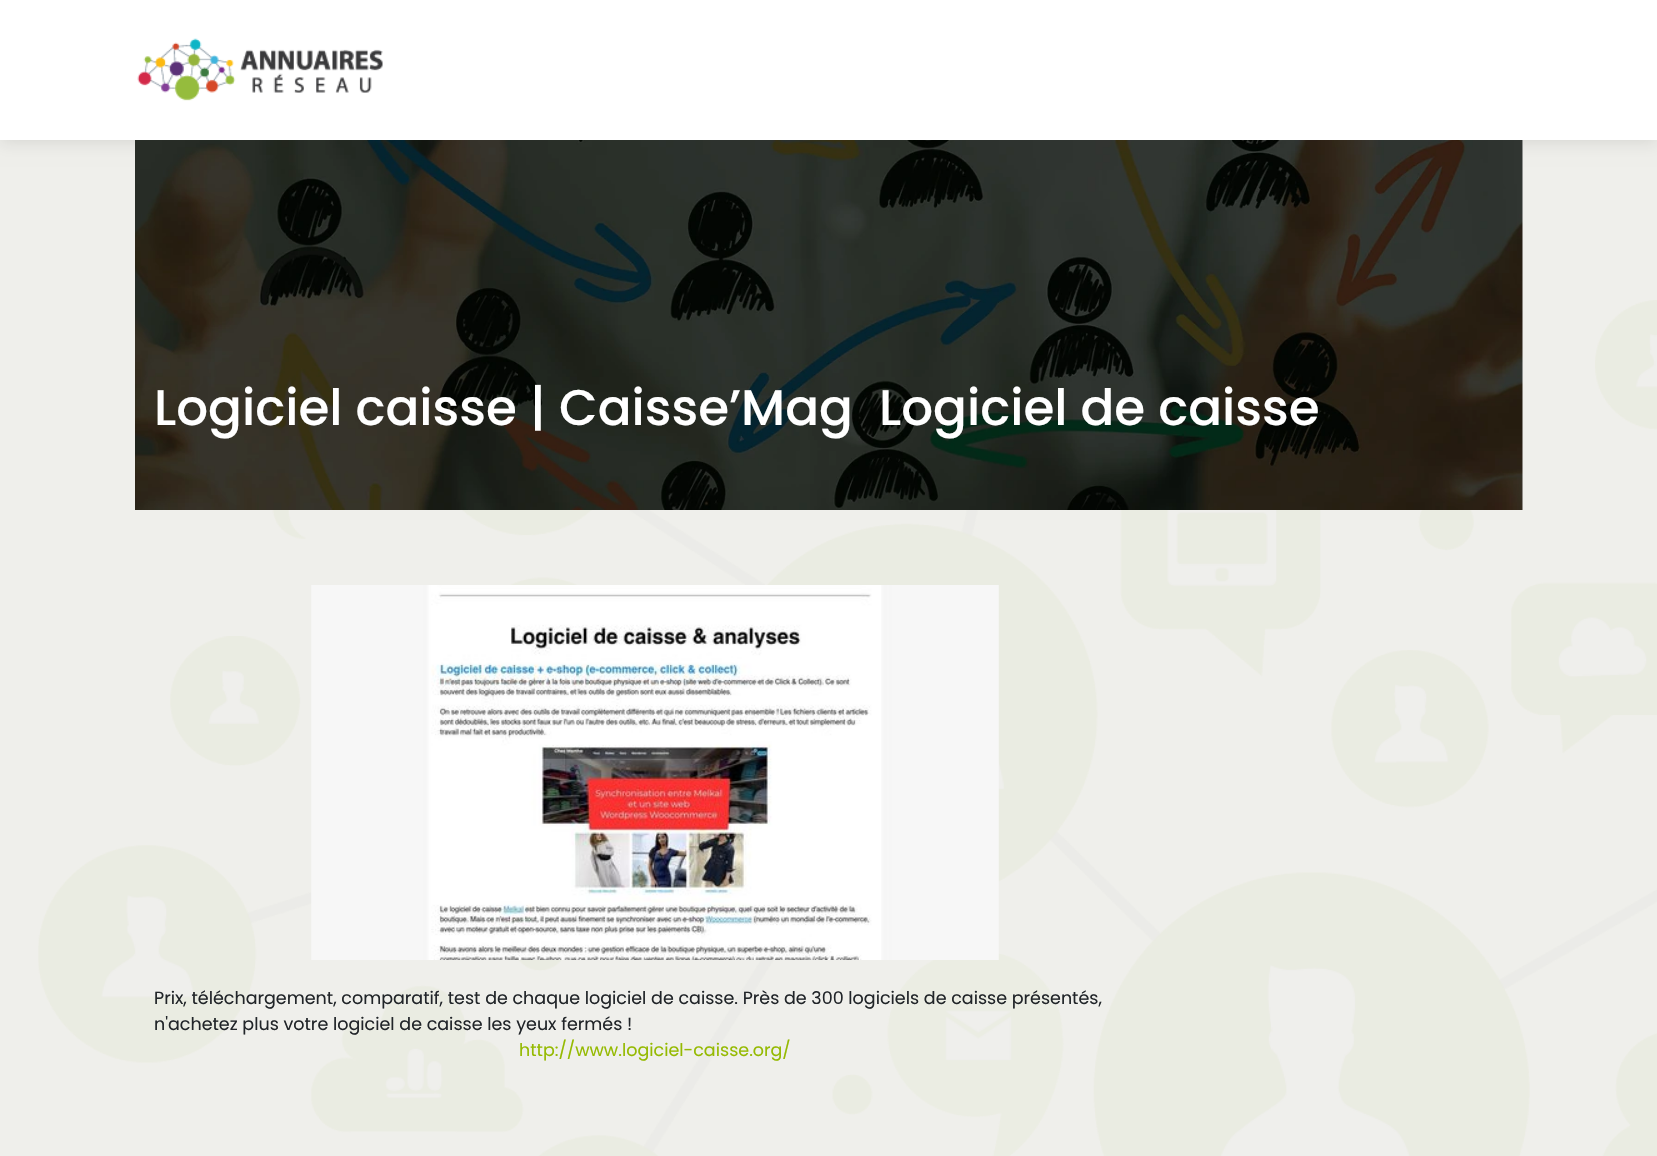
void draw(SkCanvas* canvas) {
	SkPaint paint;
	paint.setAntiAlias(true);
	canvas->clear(0xffefefeb);
	canvas->drawImageRect(SkImages::DeferredFromEncodedData(SkData::MakeFromFileName("img1.png")), SkRect::MakeXYWH(38, 300, 1619, 856), SkSamplingOptions());
	paint.setColor(0x1a000000);
	paint.setMaskFilter(SkMaskFilter::MakeBlur(kNormal_SkBlurStyle, 8));
	canvas->drawRect(SkRect::MakeXYWH(0, -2, 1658, 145), paint);
	paint.setMaskFilter(nullptr);
	paint.setColor(0xffffffff);
	canvas->drawRect(SkRect::MakeXYWH(0, 0, 1657, 140), paint);
	canvas->drawImageRect(SkImages::DeferredFromEncodedData(SkData::MakeFromFileName("img2.png")), SkRect::MakeXYWH(137, 38, 246, 63), SkSamplingOptions());
	paint.setColor(0xffeeeeee);
	canvas->drawRect(SkRect::MakeXYWH(1522, 140, 1, 370), paint);
	canvas->drawImageRect(SkImages::DeferredFromEncodedData(SkData::MakeFromFileName("img3.png")), SkRect::MakeXYWH(135, 140, 1388, 370), SkSamplingOptions());
	SkFont f1(fontMgr->matchFamilyStyle("Poppins", SkFontStyle(500, SkFontStyle::kNormal_Width, SkFontStyle::kUpright_Slant)), 50);
	f1.setSubpixel(true);
	paint.setColor(0xffffffff);
	canvas->drawString("Logiciel caisse | Caisse’Mag  Logiciel de caisse", 154, 425, f1, paint);
	canvas->drawImageRect(SkImages::DeferredFromEncodedData(SkData::MakeFromFileName("img4.png")), SkRect::MakeXYWH(311, 585, 688, 375), SkSamplingOptions());
	SkFont f2(fontMgr->matchFamilyStyle("Poppins", SkFontStyle::Normal()), 17.5);
	f2.setSubpixel(true);
	paint.setColor(0xff212529);
	canvas->drawString("Prix, téléchargement, comparatif, test de chaque logiciel de caisse. Près de 300 logiciels de caisse présentés,", 154, 1004, f2, paint);
	canvas->drawString("n'achetez plus votre logiciel de caisse les yeux fermés !", 154, 1030, f2, paint);
	paint.setColor(0xff95ba01);
	canvas->drawString("http://www.logiciel-caisse.org/", 519, 1056, f2, paint);
}
